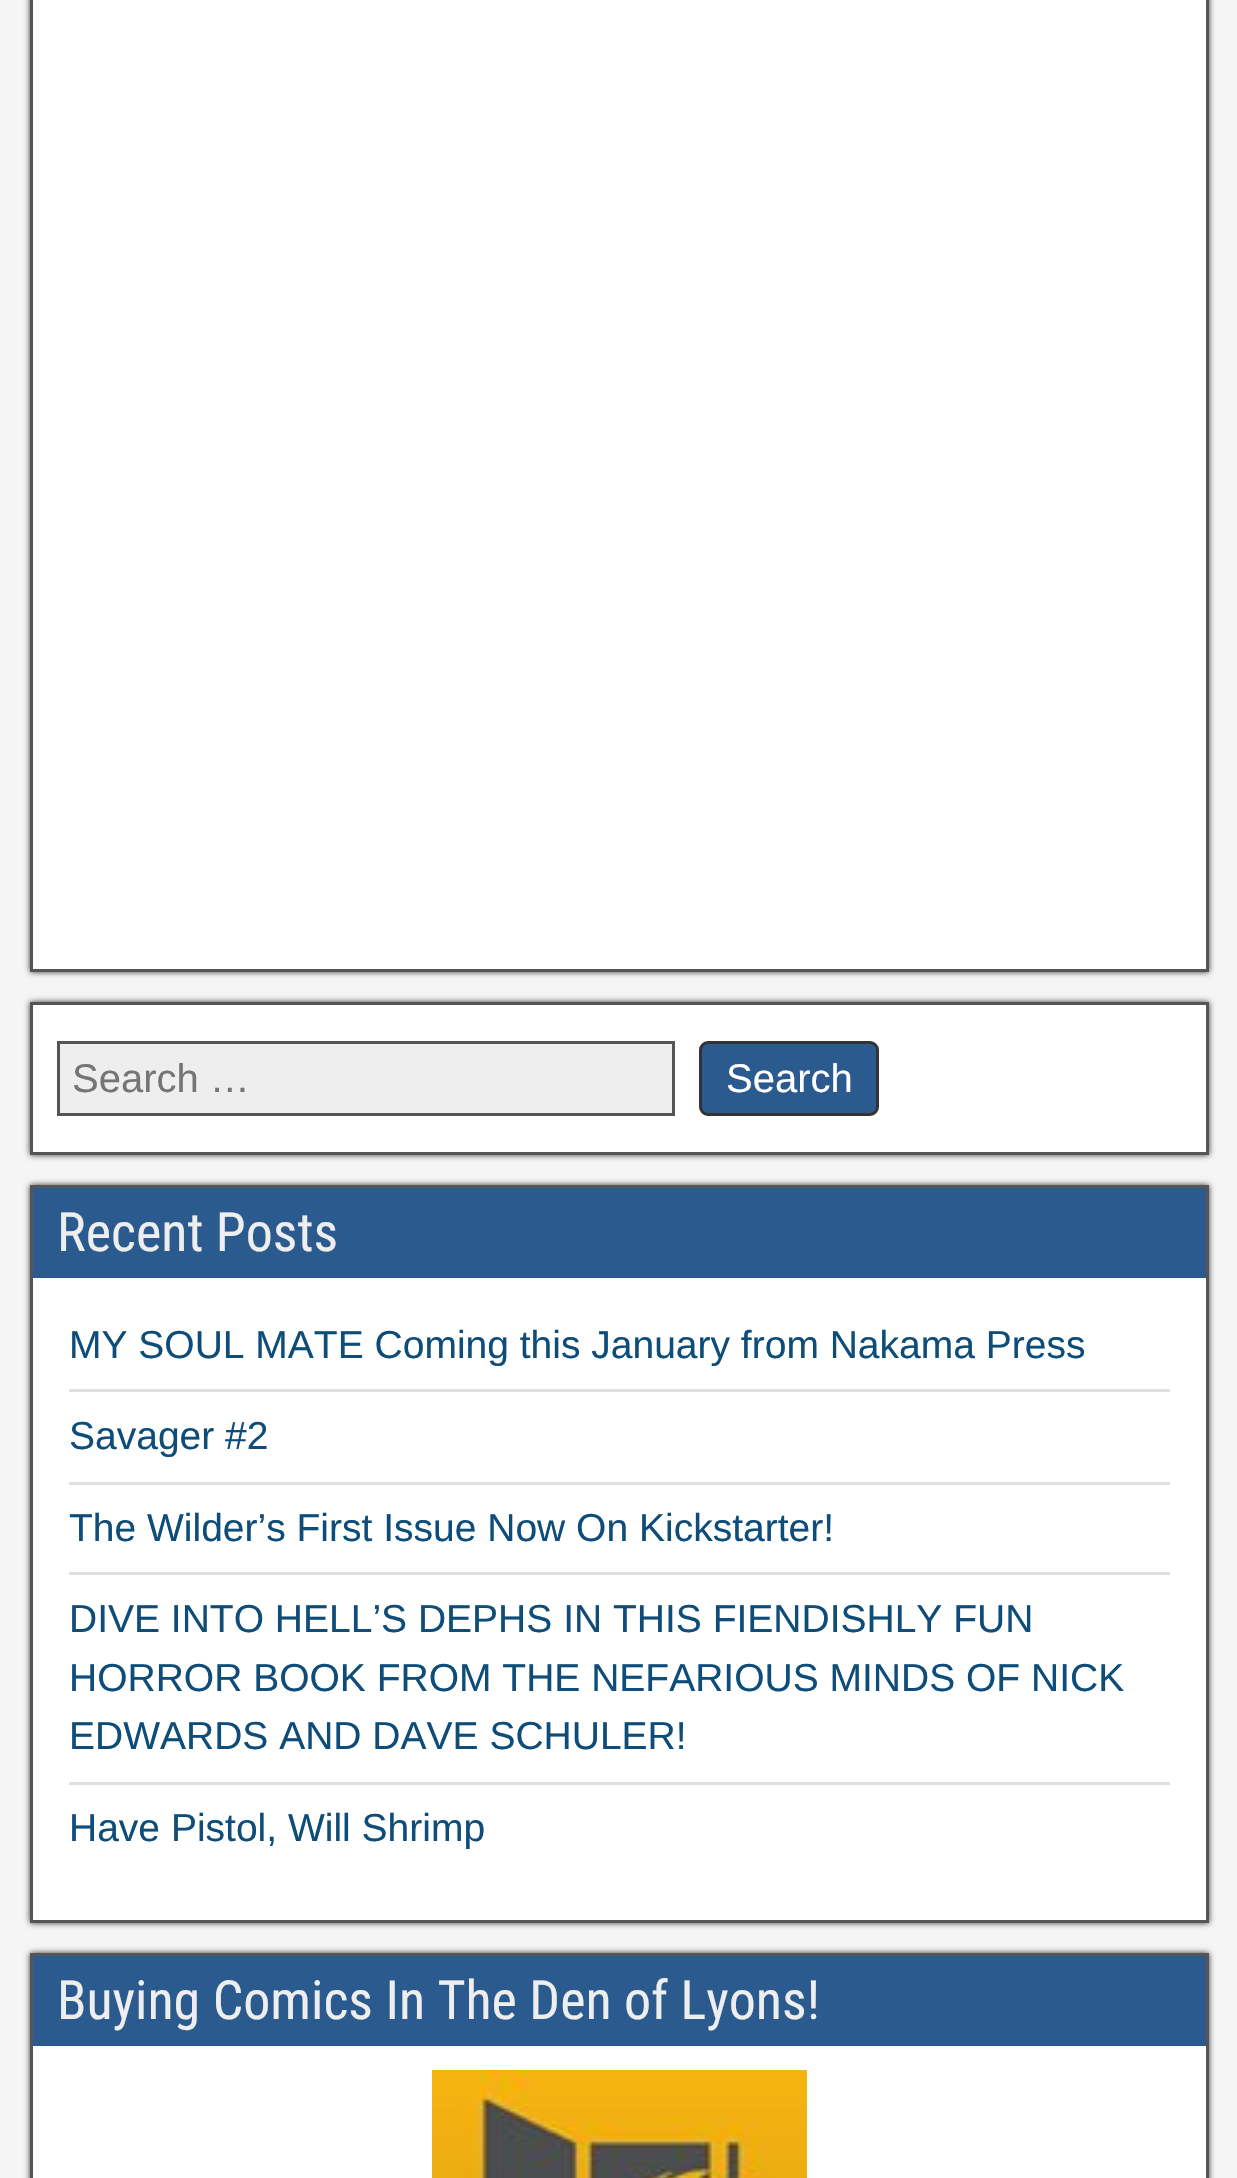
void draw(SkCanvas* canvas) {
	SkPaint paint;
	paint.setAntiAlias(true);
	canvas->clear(0xfff5f5f5);
	paint.setColor(0xff333333);
	paint.setMaskFilter(SkMaskFilter::MakeBlur(kNormal_SkBlurStyle, 3));
	canvas->drawRect(SkRect::MakeXYWH(30, -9, 1179, 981), paint);
	paint.setMaskFilter(nullptr);
	paint.setColor(0xffffffff);
	canvas->drawRect(SkRect::MakeXYWH(31.5, -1.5, 1176, 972), paint);
	paint.setStroke(true);
	paint.setStrokeWidth(3);
	paint.setColor(0xff555555);
	canvas->drawRect(SkRect::MakeXYWH(31.5, -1.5, 1176, 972), paint);
	paint.setStroke(false);
	paint.setColor(0xff333333);
	paint.setMaskFilter(SkMaskFilter::MakeBlur(kNormal_SkBlurStyle, 3));
	canvas->drawRect(SkRect::MakeXYWH(30, 1002, 1179, 153), paint);
	paint.setMaskFilter(nullptr);
	paint.setColor(0xffffffff);
	canvas->drawRect(SkRect::MakeXYWH(31.5, 1003.5, 1176, 150), paint);
	paint.setStroke(true);
	paint.setColor(0xff555555);
	canvas->drawRect(SkRect::MakeXYWH(31.5, 1003.5, 1176, 150), paint);
	paint.setStroke(false);
	paint.setColor(0xffeeeeee);
	canvas->drawRect(SkRect::MakeXYWH(58.5, 1042.5, 615, 72), paint);
	paint.setStroke(true);
	paint.setColor(0xff555555);
	canvas->drawRect(SkRect::MakeXYWH(58.5, 1042.5, 615, 72), paint);
	SkFont f1(fontMgr->matchFamilyStyle("Liberation Sans", SkFontStyle::Normal()), 40);
	f1.setSubpixel(true);
	paint.setStroke(false);
	paint.setColor(0xff757575);
	canvas->drawString("Search …", 72, 1092, f1, paint);
	paint.setColor(0xff2a5a8e);
	canvas->drawRoundRect(SkRect::MakeXYWH(700.5, 1042.5, 177, 72), 7.5, 7.5, paint);
	paint.setStroke(true);
	paint.setColor(0xff333333);
	canvas->drawRoundRect(SkRect::MakeXYWH(700.5, 1042.5, 177, 72), 7.5, 7.5, paint);
	paint.setStroke(false);
	paint.setColor(0xffffffff);
	canvas->drawString("Search", 726, 1092, f1, paint);
	paint.setColor(0xff333333);
	paint.setMaskFilter(SkMaskFilter::MakeBlur(kNormal_SkBlurStyle, 3));
	canvas->drawRect(SkRect::MakeXYWH(30, 1185, 1179, 738), paint);
	paint.setMaskFilter(nullptr);
	paint.setColor(0xffffffff);
	canvas->drawRect(SkRect::MakeXYWH(33, 1278, 1173, 642), paint);
	paint.setStroke(true);
	paint.setColor(0xff555555);
	canvas->drawRect(SkRect::MakeXYWH(31.5, 1186.5, 1176, 735), paint);
	paint.setStroke(false);
	paint.setColor(0xff2a5a8e);
	canvas->drawRect(SkRect::MakeXYWH(33, 1188, 1173, 90), paint);
	SkFont f2(fontMgr->matchFamilyStyle("Roboto Condensed", SkFontStyle::Normal()), 54);
	f2.setSubpixel(true);
	paint.setColor(0xffeeeeee);
	canvas->drawString("Recent Posts", 57, 1251, f2, paint);
	paint.setColor(0xffe0e0e0);
	canvas->drawRect(SkRect::MakeXYWH(69, 1389, 1101, 3), paint);
	SkFont f3(fontMgr->matchFamilyStyle("Liberation Sans", SkFontStyle::Normal()), 39);
	f3.setSubpixel(true);
	paint.setColor(0xff0e4d7a);
	canvas->drawString("MY SOUL MATE Coming this January from Nakama Press", 69, 1358, f3, paint);
	paint.setColor(0xffe0e0e0);
	canvas->drawRect(SkRect::MakeXYWH(69, 1482, 1101, 3), paint);
	paint.setColor(0xff0e4d7a);
	canvas->drawString("Savager #2", 69, 1449, f3, paint);
	paint.setColor(0xffe0e0e0);
	canvas->drawRect(SkRect::MakeXYWH(69, 1572, 1101, 3), paint);
	paint.setColor(0xff0e4d7a);
	canvas->drawString("The Wilder’s First Issue Now On Kickstarter!", 69, 1541, f3, paint);
	paint.setColor(0xffe0e0e0);
	canvas->drawRect(SkRect::MakeXYWH(69, 1782, 1101, 3), paint);
	paint.setColor(0xff0e4d7a);
	canvas->drawString("DIVE INTO HELL’S DEPHS IN THIS FIENDISHLY FUN", 69, 1632, f3, paint);
	canvas->drawString("HORROR BOOK FROM THE NEFARIOUS MINDS OF NICK", 69, 1691, f3, paint);
	canvas->drawString("EDWARDS AND DAVE SCHULER!", 69, 1749, f3, paint);
	canvas->drawString("Have Pistol, Will Shrimp", 69, 1841, f3, paint);
	paint.setColor(0xff333333);
	paint.setMaskFilter(SkMaskFilter::MakeBlur(kNormal_SkBlurStyle, 3));
	canvas->drawRect(SkRect::MakeXYWH(30, 1953, 1179, 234), paint);
	paint.setMaskFilter(nullptr);
	paint.setColor(0xffffffff);
	canvas->drawRect(SkRect::MakeXYWH(33, 2046, 1173, 132), paint);
	paint.setStroke(true);
	paint.setColor(0xff555555);
	canvas->drawRect(SkRect::MakeXYWH(31.5, 1954.5, 1176, 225), paint);
	paint.setStroke(false);
	paint.setColor(0xff2a5a8e);
	canvas->drawRect(SkRect::MakeXYWH(33, 1956, 1173, 90), paint);
	paint.setColor(0xffeeeeee);
	canvas->drawString("Buying Comics In The Den of Lyons!", 57, 2019, f2, paint);
	canvas->drawImageRect(SkImages::DeferredFromEncodedData(SkData::MakeFromFileName("img1.png")), SkRect::MakeXYWH(432, 2070, 375, 108), SkSamplingOptions());
}
